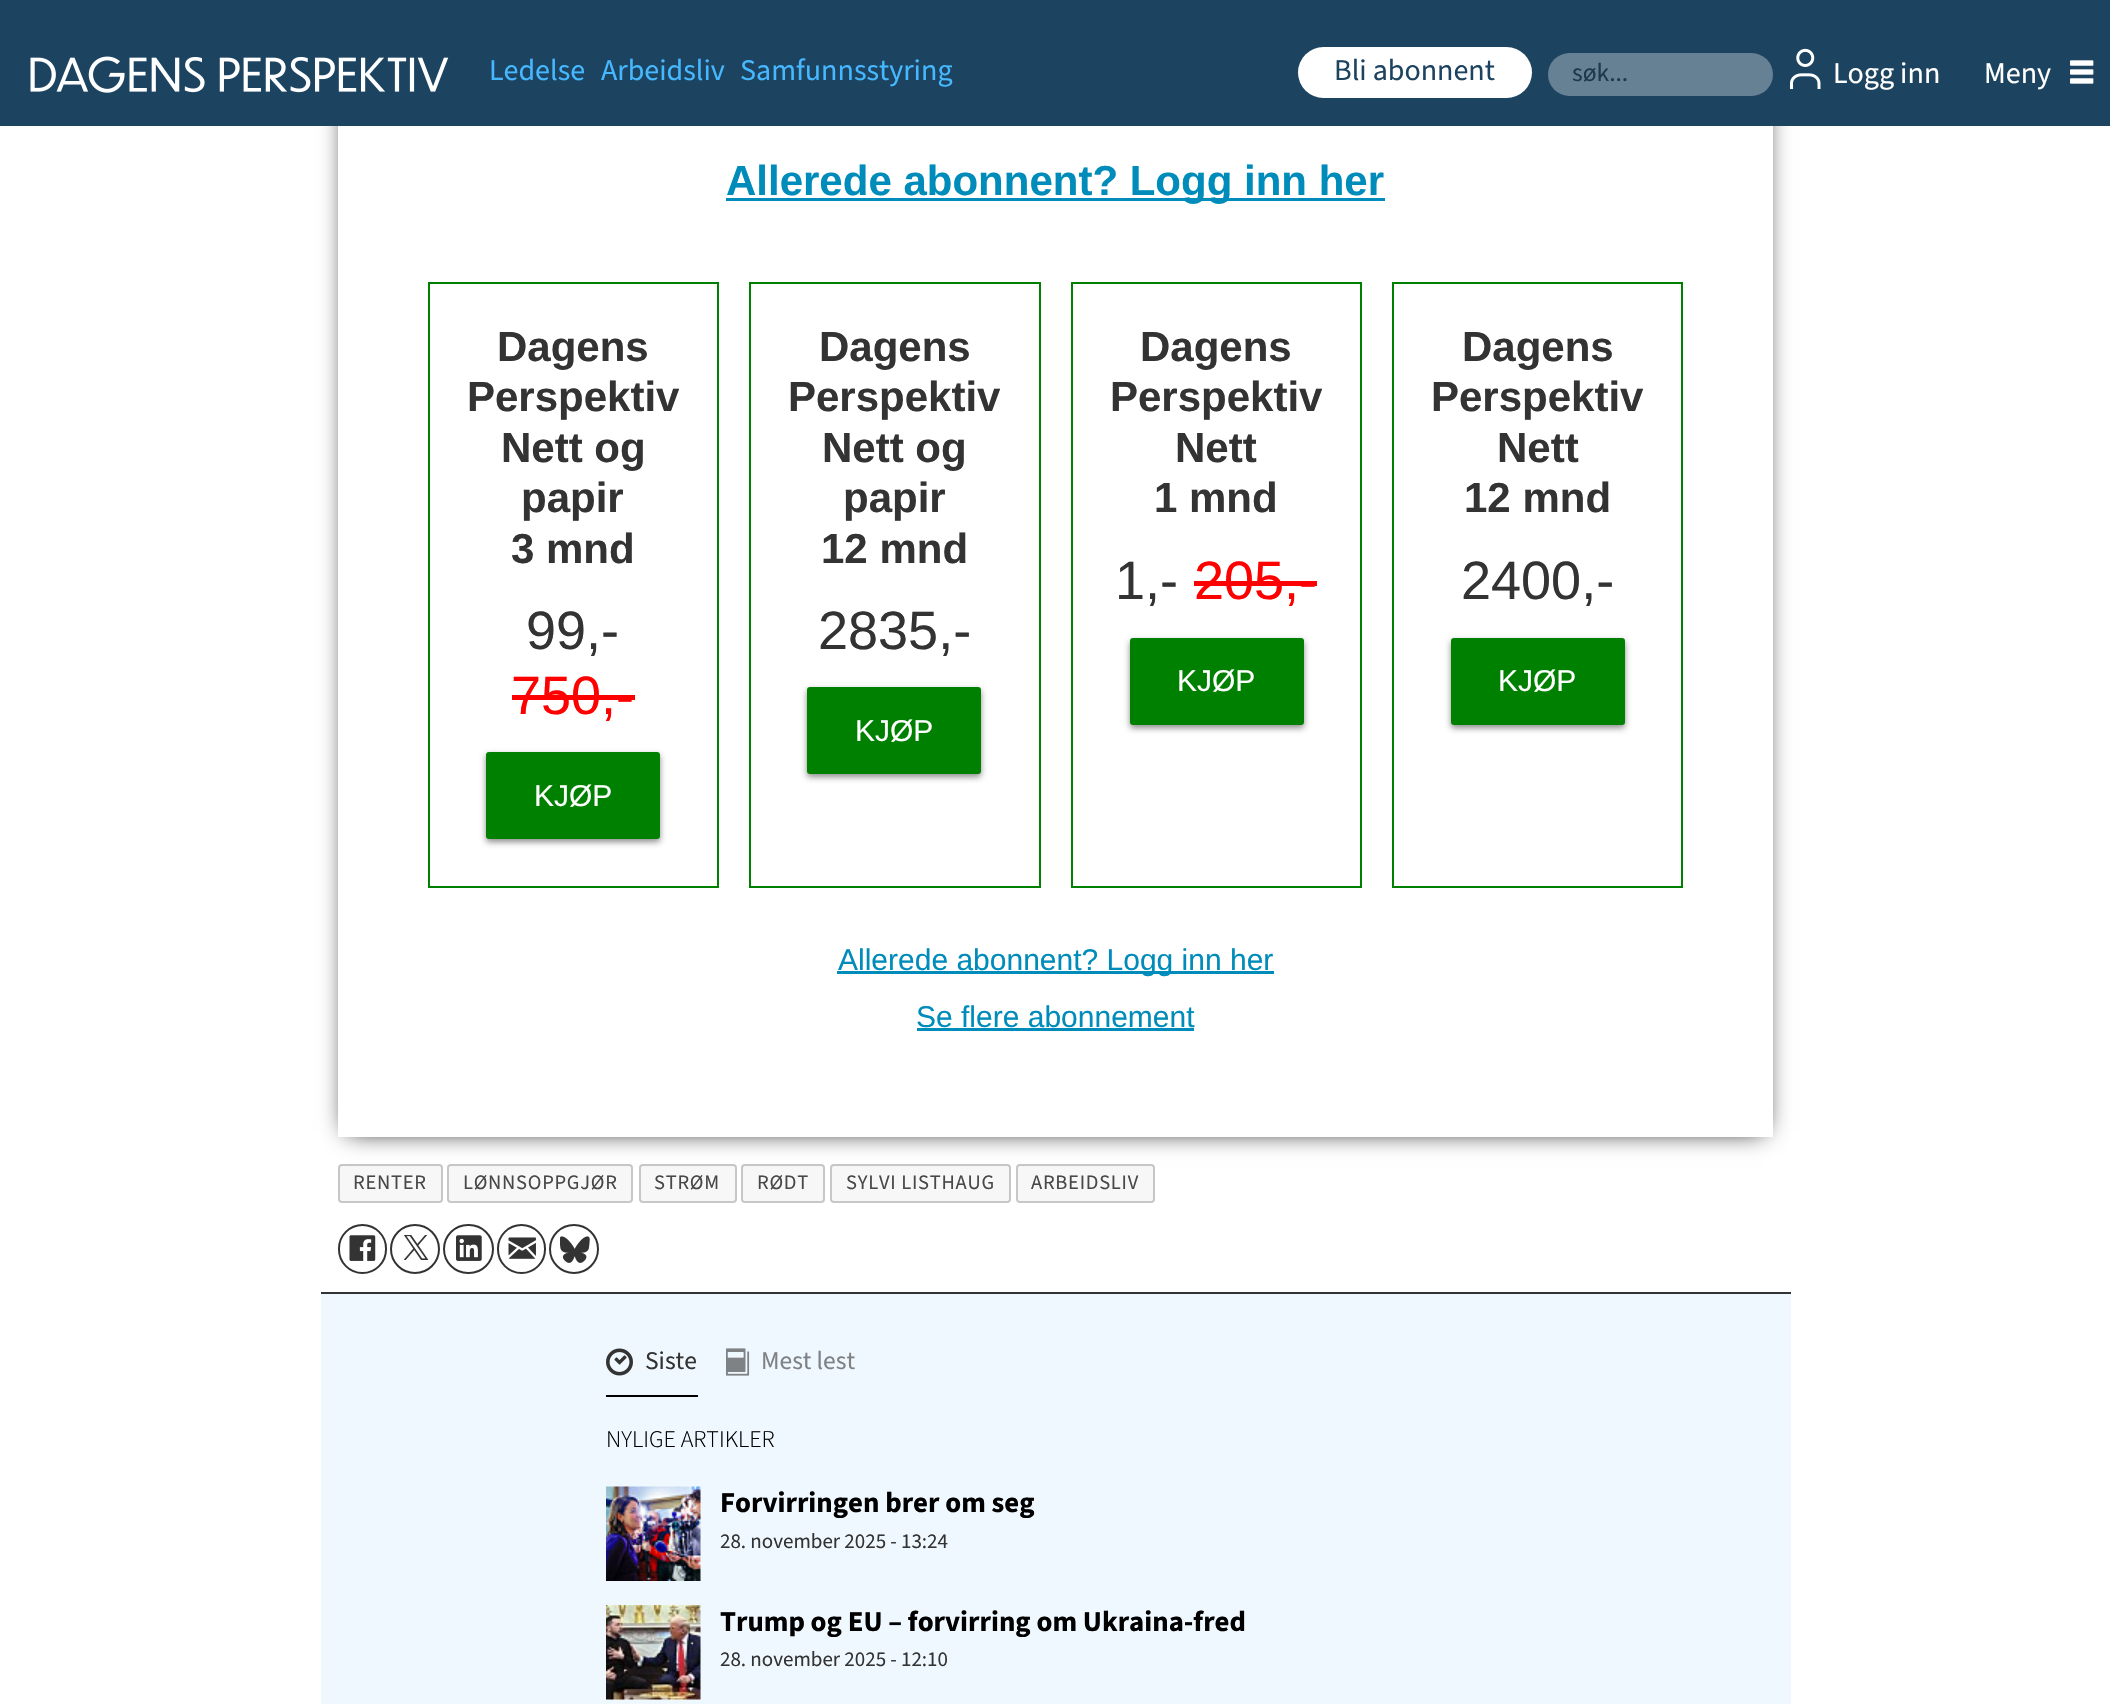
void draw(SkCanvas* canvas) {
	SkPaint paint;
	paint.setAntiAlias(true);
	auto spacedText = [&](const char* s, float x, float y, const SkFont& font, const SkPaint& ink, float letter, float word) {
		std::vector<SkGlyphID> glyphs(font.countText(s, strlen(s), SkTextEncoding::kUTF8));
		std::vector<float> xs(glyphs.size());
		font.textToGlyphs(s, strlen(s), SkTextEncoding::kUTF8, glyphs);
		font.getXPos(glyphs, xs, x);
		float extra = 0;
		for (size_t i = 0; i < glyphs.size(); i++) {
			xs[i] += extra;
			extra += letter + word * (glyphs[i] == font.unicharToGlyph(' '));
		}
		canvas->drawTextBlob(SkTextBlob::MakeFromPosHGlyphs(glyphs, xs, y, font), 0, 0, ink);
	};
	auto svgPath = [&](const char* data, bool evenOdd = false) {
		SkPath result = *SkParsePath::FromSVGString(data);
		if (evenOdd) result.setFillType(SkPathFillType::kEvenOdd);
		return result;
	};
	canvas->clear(0xffffffff);
	paint.setColor(0xfff7f7f7);
	canvas->drawRoundRect(SkRect::MakeXYWH(339, 1165, 103, 37), 3, 3, paint);
	paint.setStroke(true);
	paint.setStrokeWidth(2);
	paint.setColor(0xffc7c7c7);
	canvas->drawRoundRect(SkRect::MakeXYWH(339, 1165, 103, 37), 3, 3, paint);
	paint.setStroke(false);
	paint.setColor(0xfff7f7f7);
	canvas->drawRoundRect(SkRect::MakeXYWH(448, 1165, 184, 37), 3, 3, paint);
	paint.setStroke(true);
	paint.setColor(0xffc7c7c7);
	canvas->drawRoundRect(SkRect::MakeXYWH(448, 1165, 184, 37), 3, 3, paint);
	paint.setStroke(false);
	paint.setColor(0xfff7f7f7);
	canvas->drawRoundRect(SkRect::MakeXYWH(640, 1165, 96, 37), 3, 3, paint);
	paint.setStroke(true);
	paint.setColor(0xffc7c7c7);
	canvas->drawRoundRect(SkRect::MakeXYWH(640, 1165, 96, 37), 3, 3, paint);
	paint.setStroke(false);
	paint.setColor(0xfff7f7f7);
	canvas->drawRoundRect(SkRect::MakeXYWH(742, 1165, 82, 37), 3, 3, paint);
	paint.setStroke(true);
	paint.setColor(0xffc7c7c7);
	canvas->drawRoundRect(SkRect::MakeXYWH(742, 1165, 82, 37), 3, 3, paint);
	paint.setStroke(false);
	paint.setColor(0xfff7f7f7);
	canvas->drawRoundRect(SkRect::MakeXYWH(831, 1165, 179, 37), 3, 3, paint);
	paint.setStroke(true);
	paint.setColor(0xffc7c7c7);
	canvas->drawRoundRect(SkRect::MakeXYWH(831, 1165, 179, 37), 3, 3, paint);
	paint.setStroke(false);
	paint.setColor(0xfff7f7f7);
	canvas->drawRoundRect(SkRect::MakeXYWH(1017, 1165, 137, 37), 3, 3, paint);
	paint.setStroke(true);
	paint.setColor(0xffc7c7c7);
	canvas->drawRoundRect(SkRect::MakeXYWH(1017, 1165, 137, 37), 3, 3, paint);
	canvas->save();
	canvas->clipPath(svgPath("M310 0H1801V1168H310ZM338-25H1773V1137H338Z", true), true);
	paint.setStroke(false);
	paint.setColor(0xff000000);
	paint.setMaskFilter(SkMaskFilter::MakeBlur(kNormal_SkBlurStyle, 12));
	canvas->drawRect(SkRect::MakeXYWH(347, -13, 1417, 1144), paint);
	paint.setMaskFilter(nullptr);
	canvas->restore();
	paint.setColor(0xff1c4360);
	canvas->drawRect(SkRect::MakeXYWH(0, 0, 2110, 126), paint);
	canvas->drawImageRect(SkImages::DeferredFromEncodedData(SkData::MakeFromFileName("img1.png")), SkRect::MakeXYWH(30, 56, 419, 37), SkSamplingOptions());
	SkFont f1(fontMgr->matchFamilyStyle("Source Sans 3", SkFontStyle::Normal()), 30);
	f1.setSubpixel(true);
	paint.setColor(0xff46b8ff);
	canvas->drawString("Ledelse", 489, 80, f1, paint);
	canvas->drawString("Arbeidsliv", 601, 80, f1, paint);
	canvas->drawString("Samfunnsstyring", 740, 80, f1, paint);
	paint.setColor(0xffffffff);
	canvas->drawRoundRect(SkRect::MakeXYWH(1298, 47, 234, 51), 25.5, 25.5, paint);
	paint.setColor(0xff1c4360);
	canvas->drawString("Bli abonnent", 1334, 80, f1, paint);
	paint.setColor(0xff678194);
	canvas->drawRoundRect(SkRect::MakeXYWH(1548, 53, 225, 43), 21.5, 21.5, paint);
	SkFont f2(fontMgr->matchFamilyStyle("Source Sans 3", SkFontStyle::Normal()), 25.5);
	f2.setSubpixel(true);
	paint.setColor(0xff1e384c);
	canvas->drawString("søk...", 1572, 81, f2, paint);
	canvas->drawImageRect(SkImages::DeferredFromEncodedData(SkData::MakeFromFileName("img2.png")), SkRect::MakeXYWH(1790, 48, 31, 41), SkSamplingOptions());
	paint.setColor(0xffffffff);
	canvas->drawString("Logg inn", 1833, 83, f1, paint);
	canvas->drawString("Meny", 1984, 83, f1, paint);
	canvas->drawImageRect(SkImages::DeferredFromEncodedData(SkData::MakeFromFileName("img3.png")), SkRect::MakeXYWH(2070, 60, 24, 24), SkSamplingOptions());
	paint.setColor(0xff008cba);
	canvas->drawRect(SkRect::MakeXYWH(726, 198, 659, 3), paint);
	SkFont f3(fontMgr->matchFamilyStyle("Liberation Sans", SkFontStyle::Bold()), 42);
	f3.setSubpixel(true);
	canvas->drawString("Allerede abonnent? Logg inn her", 726, 195, f3, paint);
	paint.setStroke(true);
	paint.setColor(0xff008000);
	canvas->drawRect(SkRect::MakeXYWH(429, 283, 289, 604), paint);
	paint.setStroke(false);
	paint.setColor(0xff333333);
	canvas->drawString("Dagens", 497, 361, f3, paint);
	canvas->drawString("Perspektiv", 467, 411, f3, paint);
	canvas->drawString("Nett og", 501, 462, f3, paint);
	canvas->drawString("papir", 521, 512, f3, paint);
	canvas->drawString("3 mnd", 511, 563, f3, paint);
	SkFont f4(fontMgr->matchFamilyStyle("Liberation Sans", SkFontStyle::Normal()), 54);
	f4.setSubpixel(true);
	canvas->drawString("99,-", 526, 649, f4, paint);
	paint.setColor(0xffff0000);
	canvas->drawString("750,-", 511, 714, f4, paint);
	canvas->drawRect(SkRect::MakeXYWH(512, 695, 123, 5), paint);
	paint.setColor(0x73000000);
	paint.setMaskFilter(SkMaskFilter::MakeBlur(kNormal_SkBlurStyle, 3));
	canvas->drawRoundRect(SkRect::MakeXYWH(486, 755, 174, 87), 3, 3, paint);
	paint.setMaskFilter(nullptr);
	paint.setColor(0xff008000);
	canvas->drawRoundRect(SkRect::MakeXYWH(486, 752, 174, 87), 3, 3, paint);
	SkFont f5(fontMgr->matchFamilyStyle("Liberation Sans", SkFontStyle::Normal()), 30);
	f5.setSubpixel(true);
	paint.setColor(0xffffffff);
	canvas->drawString("KJØP", 534, 806, f5, paint);
	paint.setStroke(true);
	paint.setColor(0xff008000);
	canvas->drawRect(SkRect::MakeXYWH(750, 283, 290, 604), paint);
	paint.setStroke(false);
	paint.setColor(0xff333333);
	canvas->drawString("Dagens", 819, 361, f3, paint);
	canvas->drawString("Perspektiv", 788, 411, f3, paint);
	canvas->drawString("Nett og", 822, 462, f3, paint);
	canvas->drawString("papir", 843, 512, f3, paint);
	canvas->drawString("12 mnd", 821, 563, f3, paint);
	canvas->drawString("2835,-", 818, 649, f4, paint);
	paint.setColor(0x73000000);
	paint.setMaskFilter(SkMaskFilter::MakeBlur(kNormal_SkBlurStyle, 3));
	canvas->drawRoundRect(SkRect::MakeXYWH(807, 690, 174, 87), 3, 3, paint);
	paint.setMaskFilter(nullptr);
	paint.setColor(0xff008000);
	canvas->drawRoundRect(SkRect::MakeXYWH(807, 687, 174, 87), 3, 3, paint);
	paint.setColor(0xffffffff);
	canvas->drawString("KJØP", 855, 741, f5, paint);
	paint.setStroke(true);
	paint.setColor(0xff008000);
	canvas->drawRect(SkRect::MakeXYWH(1072, 283, 289, 604), paint);
	paint.setStroke(false);
	paint.setColor(0xff333333);
	canvas->drawString("Dagens", 1140, 361, f3, paint);
	canvas->drawString("Perspektiv", 1110, 411, f3, paint);
	canvas->drawString("Nett", 1175, 462, f3, paint);
	canvas->drawString("1 mnd", 1154, 512, f3, paint);
	canvas->drawString("1,-", 1115, 599, f4, paint);
	paint.setColor(0xffff0000);
	canvas->drawString("205,-", 1194, 599, f4, paint);
	canvas->drawRect(SkRect::MakeXYWH(1194, 581, 123, 5), paint);
	paint.setColor(0x73000000);
	paint.setMaskFilter(SkMaskFilter::MakeBlur(kNormal_SkBlurStyle, 3));
	canvas->drawRoundRect(SkRect::MakeXYWH(1130, 641, 174, 87), 3, 3, paint);
	paint.setMaskFilter(nullptr);
	paint.setColor(0xff008000);
	canvas->drawRoundRect(SkRect::MakeXYWH(1130, 638, 174, 87), 3, 3, paint);
	paint.setColor(0xffffffff);
	canvas->drawString("KJØP", 1177, 691, f5, paint);
	paint.setStroke(true);
	paint.setColor(0xff008000);
	canvas->drawRect(SkRect::MakeXYWH(1393, 283, 289, 604), paint);
	paint.setStroke(false);
	paint.setColor(0xff333333);
	canvas->drawString("Dagens", 1462, 361, f3, paint);
	canvas->drawString("Perspektiv", 1431, 411, f3, paint);
	canvas->drawString("Nett", 1497, 462, f3, paint);
	canvas->drawString("12 mnd", 1464, 512, f3, paint);
	canvas->drawString("2400,-", 1461, 599, f4, paint);
	paint.setColor(0x73000000);
	paint.setMaskFilter(SkMaskFilter::MakeBlur(kNormal_SkBlurStyle, 3));
	canvas->drawRoundRect(SkRect::MakeXYWH(1451, 641, 174, 87), 3, 3, paint);
	paint.setMaskFilter(nullptr);
	paint.setColor(0xff008000);
	canvas->drawRoundRect(SkRect::MakeXYWH(1451, 638, 174, 87), 3, 3, paint);
	paint.setColor(0xffffffff);
	canvas->drawString("KJØP", 1498, 691, f5, paint);
	paint.setColor(0xff008cba);
	canvas->drawRect(SkRect::MakeXYWH(837, 971, 437, 3), paint);
	canvas->drawString("Allerede abonnent? Logg inn her", 838, 970, f5, paint);
	canvas->drawString("Se flere abonnement", 916, 1027, f5, paint);
	canvas->drawRect(SkRect::MakeXYWH(917, 1028, 277, 3), paint);
	SkFont f6(fontMgr->matchFamilyStyle("Source Sans 3", SkFontStyle::Normal()), 20.5);
	f6.setSubpixel(true);
	paint.setColor(0xff484848);
	spacedText("RENTER", 353, 1189, f6, paint, 0.75, 0);
	spacedText("LØNNSOPPGJØR", 463, 1189, f6, paint, 0.75, 0);
	spacedText("STRØM", 654, 1189, f6, paint, 0.75, 0);
	spacedText("RØDT", 757, 1189, f6, paint, 0.75, 0);
	spacedText("SYLVI LISTHAUG", 846, 1189, f6, paint, 0.75, 0);
	spacedText("ARBEIDSLIV", 1031, 1189, f6, paint, 0.75, 0);
	paint.setStroke(true);
	paint.setColor(0xff333333);
	canvas->drawRoundRect(SkRect::MakeXYWH(339, 1225, 47, 48), 23.5, 23.5, paint);
	canvas->drawImageRect(SkImages::DeferredFromEncodedData(SkData::MakeFromFileName("img4.png")), SkRect::MakeXYWH(349, 1235, 27, 26), SkSamplingOptions());
	canvas->drawCircle(415, 1249, 24, paint);
	canvas->drawImageRect(SkImages::DeferredFromEncodedData(SkData::MakeFromFileName("img5.png")), SkRect::MakeXYWH(404, 1235, 25, 25), SkSamplingOptions());
	canvas->drawRoundRect(SkRect::MakeXYWH(444, 1225, 49, 48), 24, 24, paint);
	canvas->drawImageRect(SkImages::DeferredFromEncodedData(SkData::MakeFromFileName("img6.png")), SkRect::MakeXYWH(456, 1235, 26, 26), SkSamplingOptions());
	canvas->drawRoundRect(SkRect::MakeXYWH(498, 1225, 47, 48), 23.5, 23.5, paint);
	canvas->drawImageRect(SkImages::DeferredFromEncodedData(SkData::MakeFromFileName("img7.png")), SkRect::MakeXYWH(508, 1237, 28, 22), SkSamplingOptions());
	canvas->drawCircle(574, 1249, 24, paint);
	canvas->drawImageRect(SkImages::DeferredFromEncodedData(SkData::MakeFromFileName("img8.png")), SkRect::MakeXYWH(560, 1236, 30, 27), SkSamplingOptions());
	paint.setStroke(false);
	paint.setColor(0xfff0f8ff);
	canvas->drawRect(SkRect::MakeXYWH(321, 1294, 1470, 410), paint);
	paint.setColor(0xff333333);
	canvas->drawRect(SkRect::MakeXYWH(321, 1292, 1470, 2), paint);
	paint.setColor(0xff000000);
	canvas->drawRect(SkRect::MakeXYWH(606, 1395, 92, 2), paint);
	canvas->drawImageRect(SkImages::DeferredFromEncodedData(SkData::MakeFromFileName("img9.png")), SkRect::MakeXYWH(606, 1348, 27, 28), SkSamplingOptions());
	paint.setColor(0xff333333);
	canvas->drawString("Siste", 645, 1369, f2, paint);
	canvas->drawImageRect(SkImages::DeferredFromEncodedData(SkData::MakeFromFileName("img10.png")), SkRect::MakeXYWH(726, 1348, 24, 28), SkSamplingOptions());
	paint.setColor(0xff7f8285);
	canvas->drawString("Mest lest", 761, 1369, f2, paint);
	SkFont f7(fontMgr->matchFamilyStyle("Source Sans 3", SkFontStyle(300, SkFontStyle::kNormal_Width, SkFontStyle::kUpright_Slant)), 24);
	f7.setSubpixel(true);
	paint.setColor(0xff000000);
	canvas->drawString("NYLIGE ARTIKLER", 606, 1447, f7, paint);
	canvas->drawImageRect(SkImages::DeferredFromEncodedData(SkData::MakeFromFileName("img11.png")), SkRect::MakeXYWH(606, 1486, 95, 95), SkSamplingOptions());
	SkFont f8(fontMgr->matchFamilyStyle("Source Sans 3", SkFontStyle::Bold()), 28.75);
	f8.setSubpixel(true);
	canvas->drawString("Forvirringen brer om seg", 720, 1512, f8, paint);
	SkFont f9(fontMgr->matchFamilyStyle("Source Sans 3", SkFontStyle::Normal()), 21);
	f9.setSubpixel(true);
	paint.setColor(0xff333333);
	canvas->drawString("28. november 2025 - 13:24", 720, 1548, f9, paint);
	canvas->drawImageRect(SkImages::DeferredFromEncodedData(SkData::MakeFromFileName("img12.png")), SkRect::MakeXYWH(606, 1605, 95, 95), SkSamplingOptions());
	paint.setColor(0xff000000);
	canvas->drawString("Trump og EU – forvirring om Ukraina-fred", 720, 1631, f8, paint);
	paint.setColor(0xff333333);
	canvas->drawString("28. november 2025 - 12:10", 720, 1666, f9, paint);
}
